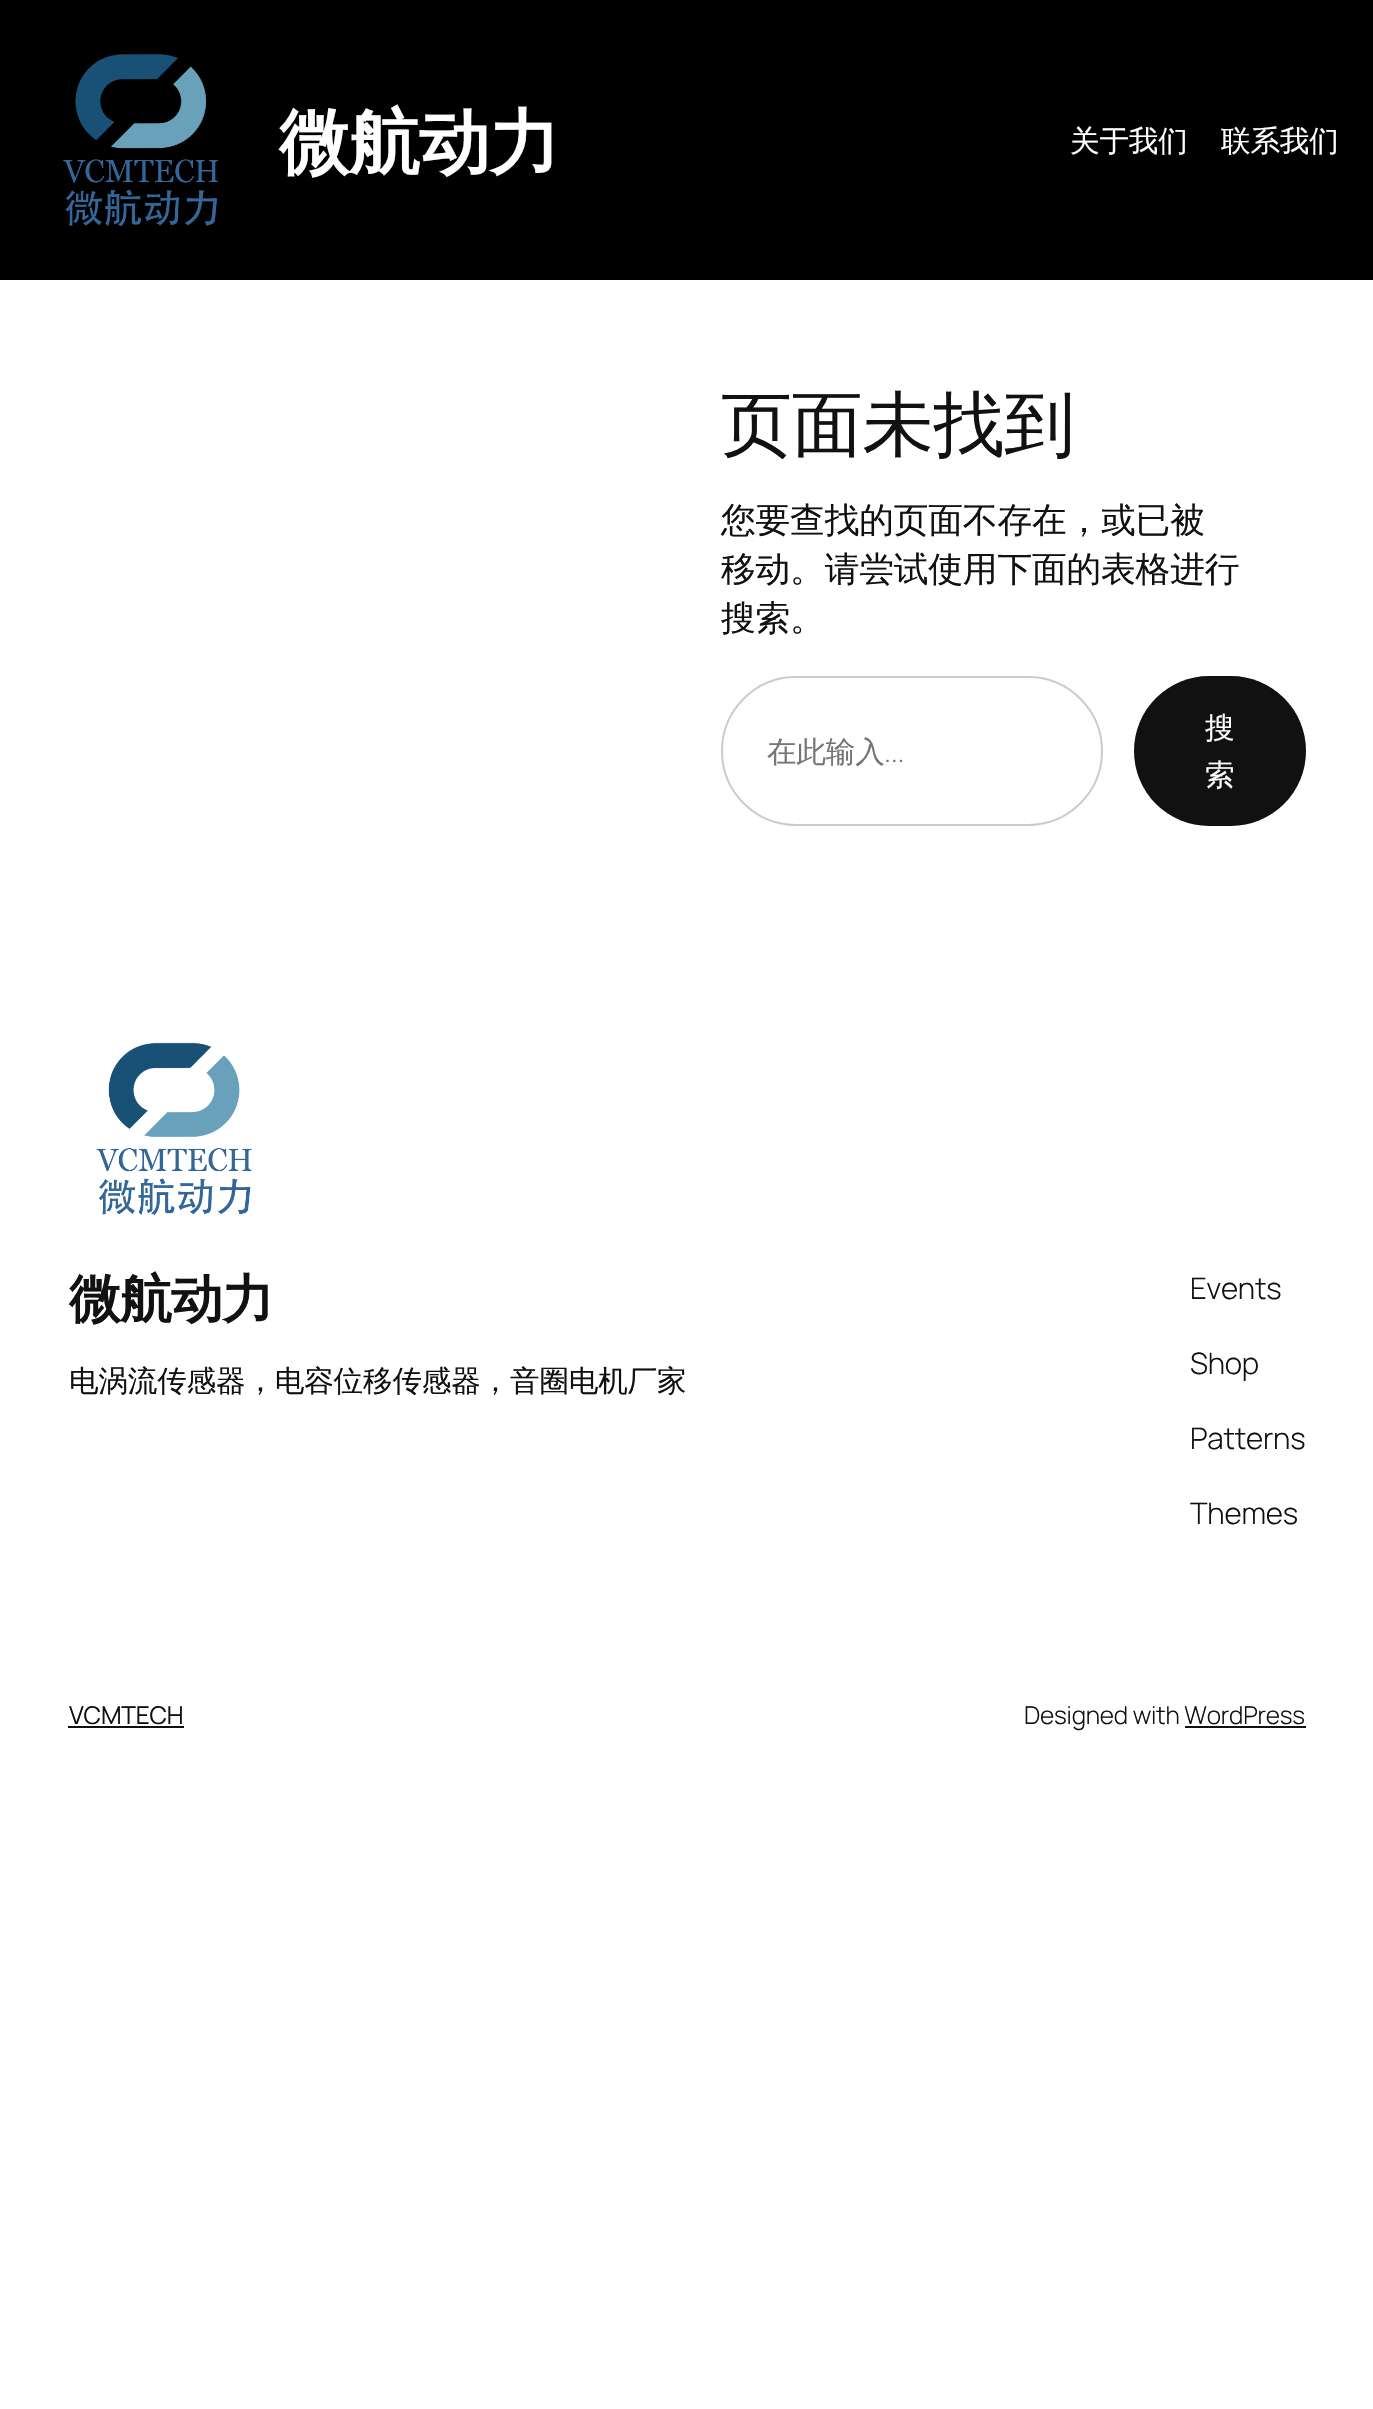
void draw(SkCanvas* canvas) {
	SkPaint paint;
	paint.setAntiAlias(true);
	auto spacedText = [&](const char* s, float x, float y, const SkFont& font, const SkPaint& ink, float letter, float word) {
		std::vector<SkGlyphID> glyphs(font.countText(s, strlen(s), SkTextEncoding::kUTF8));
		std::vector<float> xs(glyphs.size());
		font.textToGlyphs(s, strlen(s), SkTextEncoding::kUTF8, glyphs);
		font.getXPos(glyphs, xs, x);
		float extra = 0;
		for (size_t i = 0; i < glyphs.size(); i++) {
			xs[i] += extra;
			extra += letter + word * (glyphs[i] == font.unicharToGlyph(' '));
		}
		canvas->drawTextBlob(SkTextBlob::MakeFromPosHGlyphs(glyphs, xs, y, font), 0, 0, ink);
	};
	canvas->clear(0xffffffff);
	paint.setColor(0xff000000);
	canvas->drawRect(SkRect::MakeXYWH(0, 0, 1373, 280), paint);
	canvas->drawImageRect(SkImages::DeferredFromEncodedData(SkData::MakeFromFileName("img1.png")), SkRect::MakeXYWH(63, 54, 155, 173), SkSamplingOptions());
	SkFont f1(fontMgr->matchFamilyStyle("WenQuanYi Zen Hei", SkFontStyle::Bold()), 71);
	f1.setSubpixel(true);
	paint.setColor(0xffffffff);
	spacedText("微航动力", 279, 167, f1, paint, -1, 0);
	SkFont f2(fontMgr->matchFamilyStyle("WenQuanYi Zen Hei", SkFontStyle(500, SkFontStyle::kNormal_Width, SkFontStyle::kUpright_Slant)), 29.6);
	f2.setSubpixel(true);
	spacedText("关于我们", 1070, 151, f2, paint, -0.2, 0);
	spacedText("联系我们", 1221, 151, f2, paint, -0.2, 0);
	SkFont f3(fontMgr->matchFamilyStyle("WenQuanYi Zen Hei", SkFontStyle(500, SkFontStyle::kNormal_Width, SkFontStyle::kUpright_Slant)), 71);
	f3.setSubpixel(true);
	paint.setColor(0xff111111);
	spacedText("页面未找到", 721, 449, f3, paint, -0.2, 0);
	SkFont f4(fontMgr->matchFamilyStyle("WenQuanYi Zen Hei", SkFontStyle(500, SkFontStyle::kNormal_Width, SkFontStyle::kUpright_Slant)), 34.75);
	f4.setSubpixel(true);
	spacedText("您要查找的页面不存在，或已被", 721, 532, f4, paint, -0.2, 0);
	spacedText("移动。请尝试使用下面的表格进行", 721, 581, f4, paint, -0.2, 0);
	spacedText("搜索。", 721, 630, f4, paint, -0.2, 0);
	paint.setStroke(true);
	paint.setStrokeWidth(2);
	paint.setColor(0xffcccccc);
	canvas->drawRoundRect(SkRect::MakeXYWH(722, 677, 380, 148), 74, 74, paint);
	paint.setStroke(false);
	paint.setColor(0xff757575);
	spacedText("在此输入", 767, 762, f2, paint, -0.2, 0);
	SkFont f5(fontMgr->matchFamilyStyle("Manrope", SkFontStyle(300, SkFontStyle::kNormal_Width, SkFontStyle::kUpright_Slant)), 29.6);
	f5.setSubpixel(true);
	spacedText("...", 884, 762, f5, paint, -0.2, 0);
	paint.setColor(0xff111111);
	canvas->drawRoundRect(SkRect::MakeXYWH(1134, 676, 172, 150), 75, 75, paint);
	paint.setColor(0xffffffff);
	spacedText("搜", 1205, 738, f2, paint, -0.2, 0);
	spacedText("索", 1205, 785, f2, paint, -0.2, 0);
	canvas->drawImageRect(SkImages::DeferredFromEncodedData(SkData::MakeFromFileName("img2.png")), SkRect::MakeXYWH(96, 1042, 156, 174), SkSamplingOptions());
	SkFont f6(fontMgr->matchFamilyStyle("WenQuanYi Zen Hei", SkFontStyle::Bold()), 52);
	f6.setSubpixel(true);
	paint.setColor(0xff111111);
	spacedText("微航动力", 69, 1317, f6, paint, -1, 0);
	spacedText("电涡流传感器，电容位移传感器，音圈电机厂家", 69, 1391, f2, paint, -0.2, 0);
	spacedText("Events", 1190, 1299, f5, paint, -0.2, 0);
	spacedText("Shop", 1190, 1374, f5, paint, -0.2, 0);
	spacedText("Patterns", 1190, 1449, f5, paint, -0.2, 0);
	spacedText("Themes", 1190, 1524, f5, paint, -0.2, 0);
	SkFont f7(fontMgr->matchFamilyStyle("Manrope", SkFontStyle::Normal()), 24.5);
	f7.setSubpixel(true);
	spacedText("VCMTECH", 69, 1724, f7, paint, -0.2, 0);
	canvas->drawRect(SkRect::MakeXYWH(68, 1726, 116, 2), paint);
	SkFont f8(fontMgr->matchFamilyStyle("Manrope", SkFontStyle(300, SkFontStyle::kNormal_Width, SkFontStyle::kUpright_Slant)), 24.5);
	f8.setSubpixel(true);
	spacedText("Designed with WordPress", 1024, 1724, f8, paint, -0.2, 0);
	canvas->drawRect(SkRect::MakeXYWH(1185, 1726, 121, 2), paint);
}
